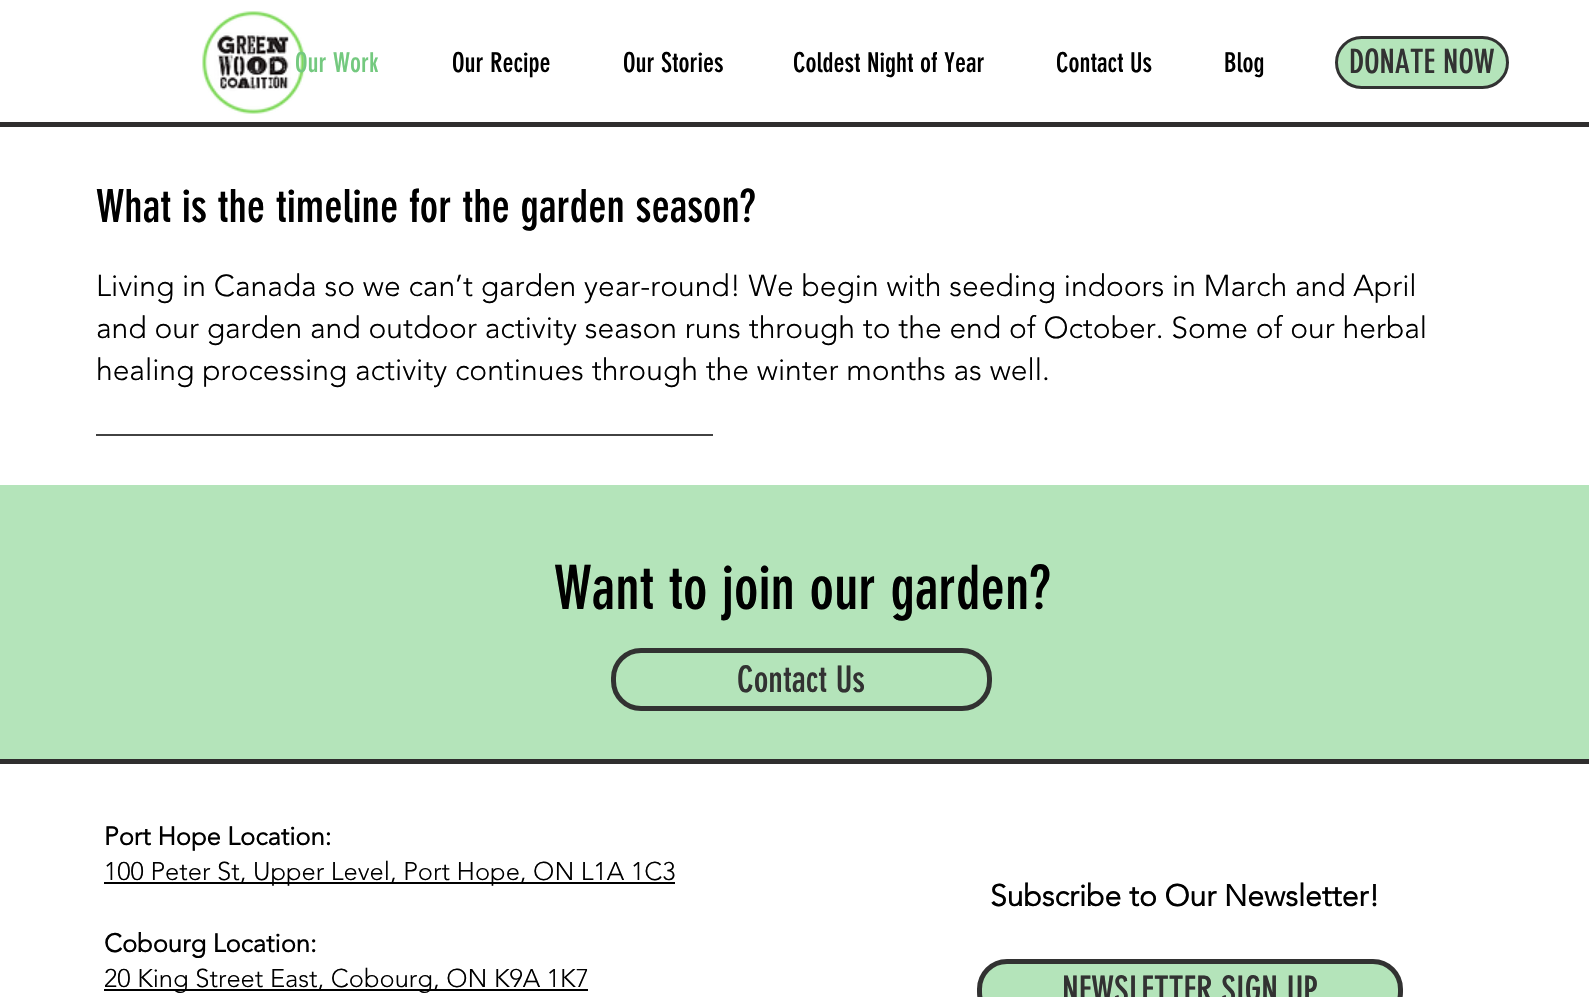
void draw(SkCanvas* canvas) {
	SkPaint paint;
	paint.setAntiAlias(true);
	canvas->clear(0xffffffff);
	canvas->drawImageRect(SkImages::DeferredFromEncodedData(SkData::MakeFromFileName("img1.png")), SkRect::MakeXYWH(202, 11, 103, 103), SkSamplingOptions());
	SkFont f1(fontMgr->matchFamilyStyle("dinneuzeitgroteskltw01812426", SkFontStyle::Normal()), 27);
	f1.setSubpixel(true);
	paint.setColor(0xff74c97f);
	canvas->drawString("Our Work", 295, 72, f1, paint);
	paint.setColor(0xff000000);
	canvas->drawString("Our Recipe", 452, 72, f1, paint);
	canvas->drawString("Our Stories", 623, 72, f1, paint);
	canvas->drawString("Coldest Night of Year", 793, 72, f1, paint);
	canvas->drawString("Contact Us", 1056, 72, f1, paint);
	canvas->drawString("Blog", 1224, 72, f1, paint);
	paint.setColor(0xffb4e4ba);
	canvas->drawRoundRect(SkRect::MakeXYWH(1336.5, 37.5, 171, 50), 25, 25, paint);
	paint.setStroke(true);
	paint.setStrokeWidth(3);
	paint.setColor(0xff323232);
	canvas->drawRoundRect(SkRect::MakeXYWH(1336.5, 37.5, 171, 50), 25, 25, paint);
	SkFont f2(fontMgr->matchFamilyStyle("dinneuzeitgroteskltw01812426", SkFontStyle::Normal()), 33);
	f2.setSubpixel(true);
	paint.setStroke(false);
	canvas->drawString("DONATE NOW", 1349, 73, f2, paint);
	paint.setColor(0xff2f2e2e);
	canvas->drawRect(SkRect::MakeXYWH(0, 122, 1589, 5), paint);
	SkFont f3(fontMgr->matchFamilyStyle("dinneuzeitgroteskltw01812426", SkFontStyle::Normal()), 45);
	f3.setSubpixel(true);
	paint.setColor(0xff000000);
	canvas->drawString("What is the timeline for the garden season?", 96, 222, f3, paint);
	SkFont f4(fontMgr->matchFamilyStyle("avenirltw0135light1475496", SkFontStyle(300, SkFontStyle::kNormal_Width, SkFontStyle::kUpright_Slant)), 30);
	f4.setSubpixel(true);
	canvas->drawString("Living in Canada so we can’t garden year-round! We begin with seeding indoors in March and April", 96, 296, f4, paint);
	canvas->drawString("and our garden and outdoor activity season runs through to the end of October. Some of our herbal", 96, 338, f4, paint);
	canvas->drawString("healing processing activity continues through the winter months as well.", 96, 380, f4, paint);
	paint.setColor(0xff424242);
	canvas->drawRect(SkRect::MakeXYWH(96, 434, 617, 2), paint);
	paint.setColor(0xffb4e4ba);
	canvas->drawRect(SkRect::MakeXYWH(0, 485, 1589, 274), paint);
	SkFont f5(fontMgr->matchFamilyStyle("dinneuzeitgroteskltw01812426", SkFontStyle::Normal()), 60);
	f5.setSubpixel(true);
	paint.setColor(0xff000000);
	canvas->drawString("Want to join our garden?", 554, 609, f5, paint);
	paint.setStroke(true);
	paint.setStrokeWidth(5);
	paint.setColor(0xff323232);
	canvas->drawRoundRect(SkRect::MakeXYWH(613.5, 650.5, 376, 58), 27.5, 27.5, paint);
	SkFont f6(fontMgr->matchFamilyStyle("dinneuzeitgroteskltw01812426", SkFontStyle::Normal()), 36);
	f6.setSubpixel(true);
	paint.setStroke(false);
	canvas->drawString("Contact Us", 737, 692, f6, paint);
	paint.setColor(0xff2f2e2e);
	canvas->drawRect(SkRect::MakeXYWH(0, 759, 1589, 5), paint);
	SkFont f7(fontMgr->matchFamilyStyle("avenirltw0135light1475496", SkFontStyle::Bold()), 25.5);
	f7.setSubpixel(true);
	paint.setColor(0xff000000);
	canvas->drawString("Port Hope Location:", 104, 845, f7, paint);
	canvas->drawRect(SkRect::MakeXYWH(104, 882, 571, 2), paint);
	SkFont f8(fontMgr->matchFamilyStyle("avenirltw0135light1475496", SkFontStyle(300, SkFontStyle::kNormal_Width, SkFontStyle::kUpright_Slant)), 25.5);
	f8.setSubpixel(true);
	canvas->drawString("100 Peter St, Upper Level, Port Hope, ON L1A 1C3", 104, 880, f8, paint);
	canvas->drawString("Cobourg Location:", 104, 952, f7, paint);
	canvas->drawRect(SkRect::MakeXYWH(104, 989, 484, 2), paint);
	canvas->drawString("20 King Street East, Cobourg, ON K9A 1K7", 104, 987, f8, paint);
	SkFont f9(fontMgr->matchFamilyStyle("avenirltw0135light1475496", SkFontStyle::Bold()), 30);
	f9.setSubpixel(true);
	canvas->drawString("Subscribe to Our Newsletter!", 990, 906, f9, paint);
	paint.setColor(0xffb4e4ba);
	canvas->drawRoundRect(SkRect::MakeXYWH(979.5, 961.5, 421, 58), 27.5, 27.5, paint);
	paint.setStroke(true);
	paint.setColor(0xff323232);
	canvas->drawRoundRect(SkRect::MakeXYWH(979.5, 961.5, 421, 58), 27.5, 27.5, paint);
	paint.setStroke(false);
	canvas->drawString("NEWSLETTER SIGN UP", 1062, 1002, f6, paint);
}
